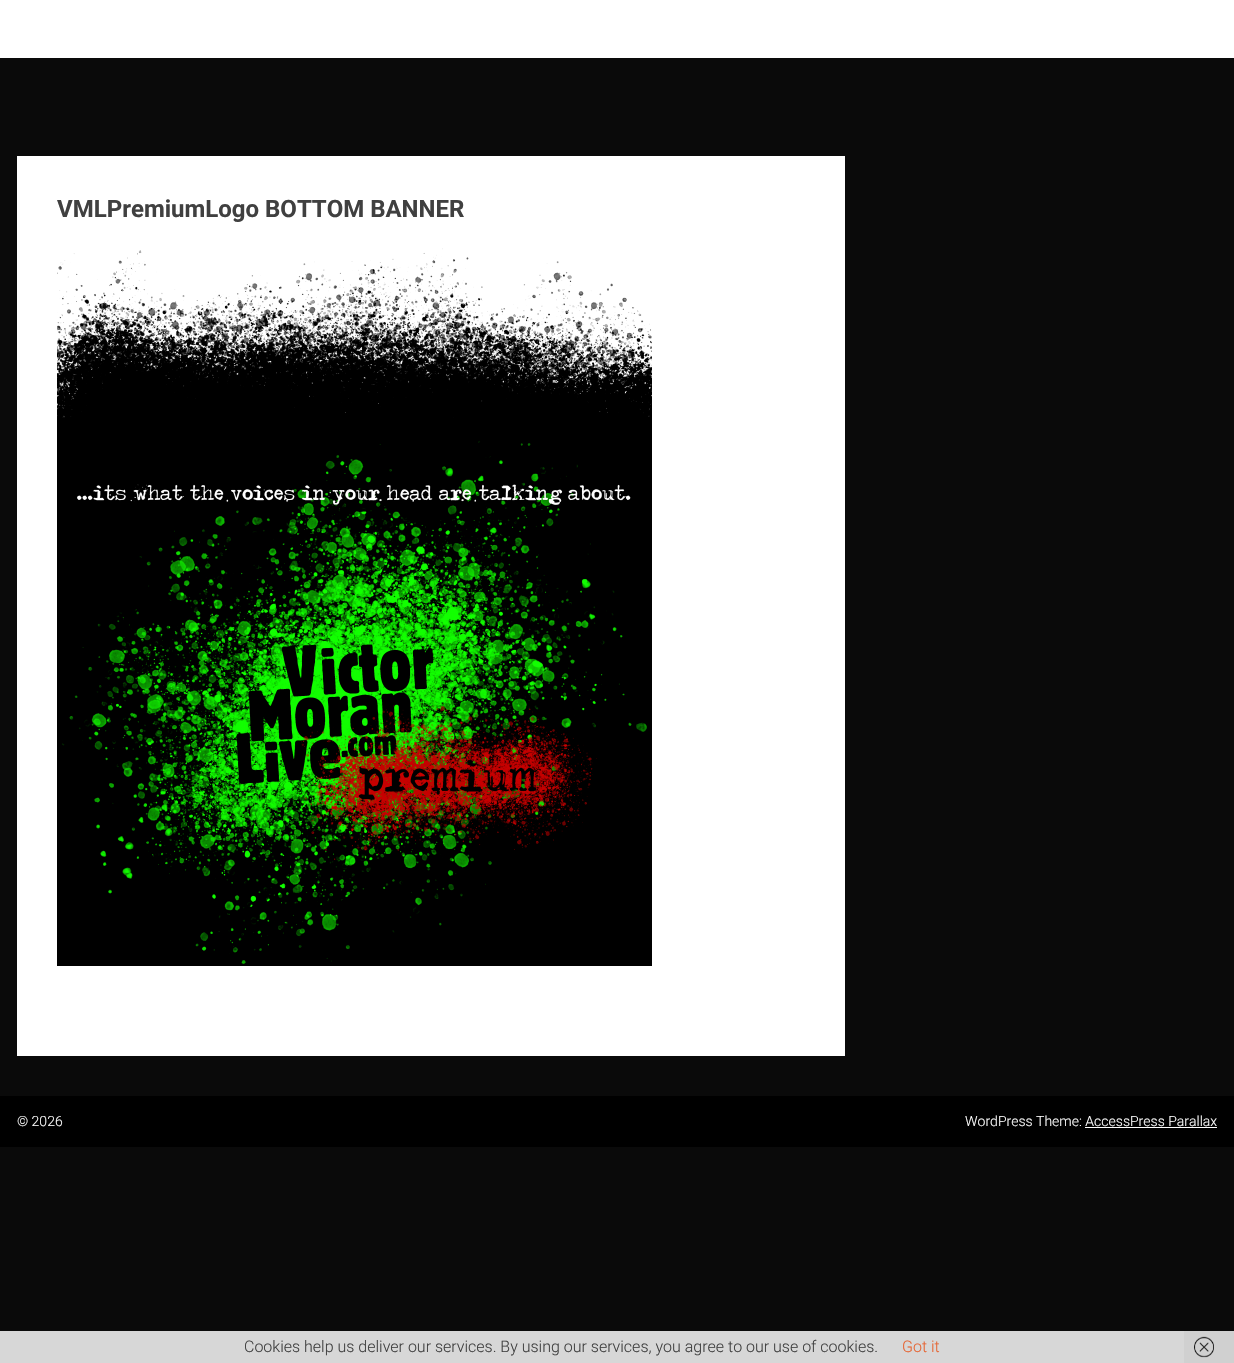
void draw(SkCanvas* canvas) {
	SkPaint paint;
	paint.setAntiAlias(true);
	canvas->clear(0xff0a0a0a);
	paint.setColor(0xffffffff);
	canvas->drawRect(SkRect::MakeXYWH(0, 0, 1234, 58), paint);
	canvas->drawRect(SkRect::MakeXYWH(17, 156, 828, 900), paint);
	SkFont f1(fontMgr->matchFamilyStyle("Roboto", SkFontStyle::Bold()), 24);
	f1.setSubpixel(true);
	paint.setColor(0xff404040);
	canvas->drawString("VMLPremiumLogo BOTTOM BANNER", 57, 217, f1, paint);
	canvas->drawImageRect(SkImages::DeferredFromEncodedData(SkData::MakeFromFileName("img1.png")), SkRect::MakeXYWH(57, 248, 595, 718), SkSamplingOptions());
	paint.setColor(0xff000000);
	canvas->drawRect(SkRect::MakeXYWH(0, 1096, 1234, 51), paint);
	SkFont f2(fontMgr->matchFamilyStyle("Roboto", SkFontStyle(300, SkFontStyle::kNormal_Width, SkFontStyle::kUpright_Slant)), 14);
	f2.setSubpixel(true);
	paint.setColor(0xffffffff);
	canvas->drawString("© 2026", 17, 1126, f2, paint);
	canvas->drawString("WordPress Theme: AccessPress Parallax", 965, 1126, f2, paint);
	canvas->drawRect(SkRect::MakeXYWH(1085, 1127, 132, 1), paint);
	paint.setColor(0xffd7d7d7);
	canvas->drawRect(SkRect::MakeXYWH(0, 1331, 1184, 32), paint);
	SkFont f3(fontMgr->matchFamilyStyle("Roboto", SkFontStyle(300, SkFontStyle::kNormal_Width, SkFontStyle::kUpright_Slant)), 16);
	f3.setSubpixel(true);
	paint.setColor(0xff404040);
	canvas->drawString("Cookies help us deliver our services. By using our services, you agree to our use of cookies.", 244, 1352, f3, paint);
	paint.setColor(0xffe66432);
	canvas->drawString("Got it", 902, 1352, f3, paint);
	paint.setColor(0xffd0d0d0);
	canvas->drawRect(SkRect::MakeXYWH(1184, 1331, 50, 32), paint);
	canvas->drawImageRect(SkImages::DeferredFromEncodedData(SkData::MakeFromFileName("img2.png")), SkRect::MakeXYWH(1194, 1336, 20, 22), SkSamplingOptions());
}
